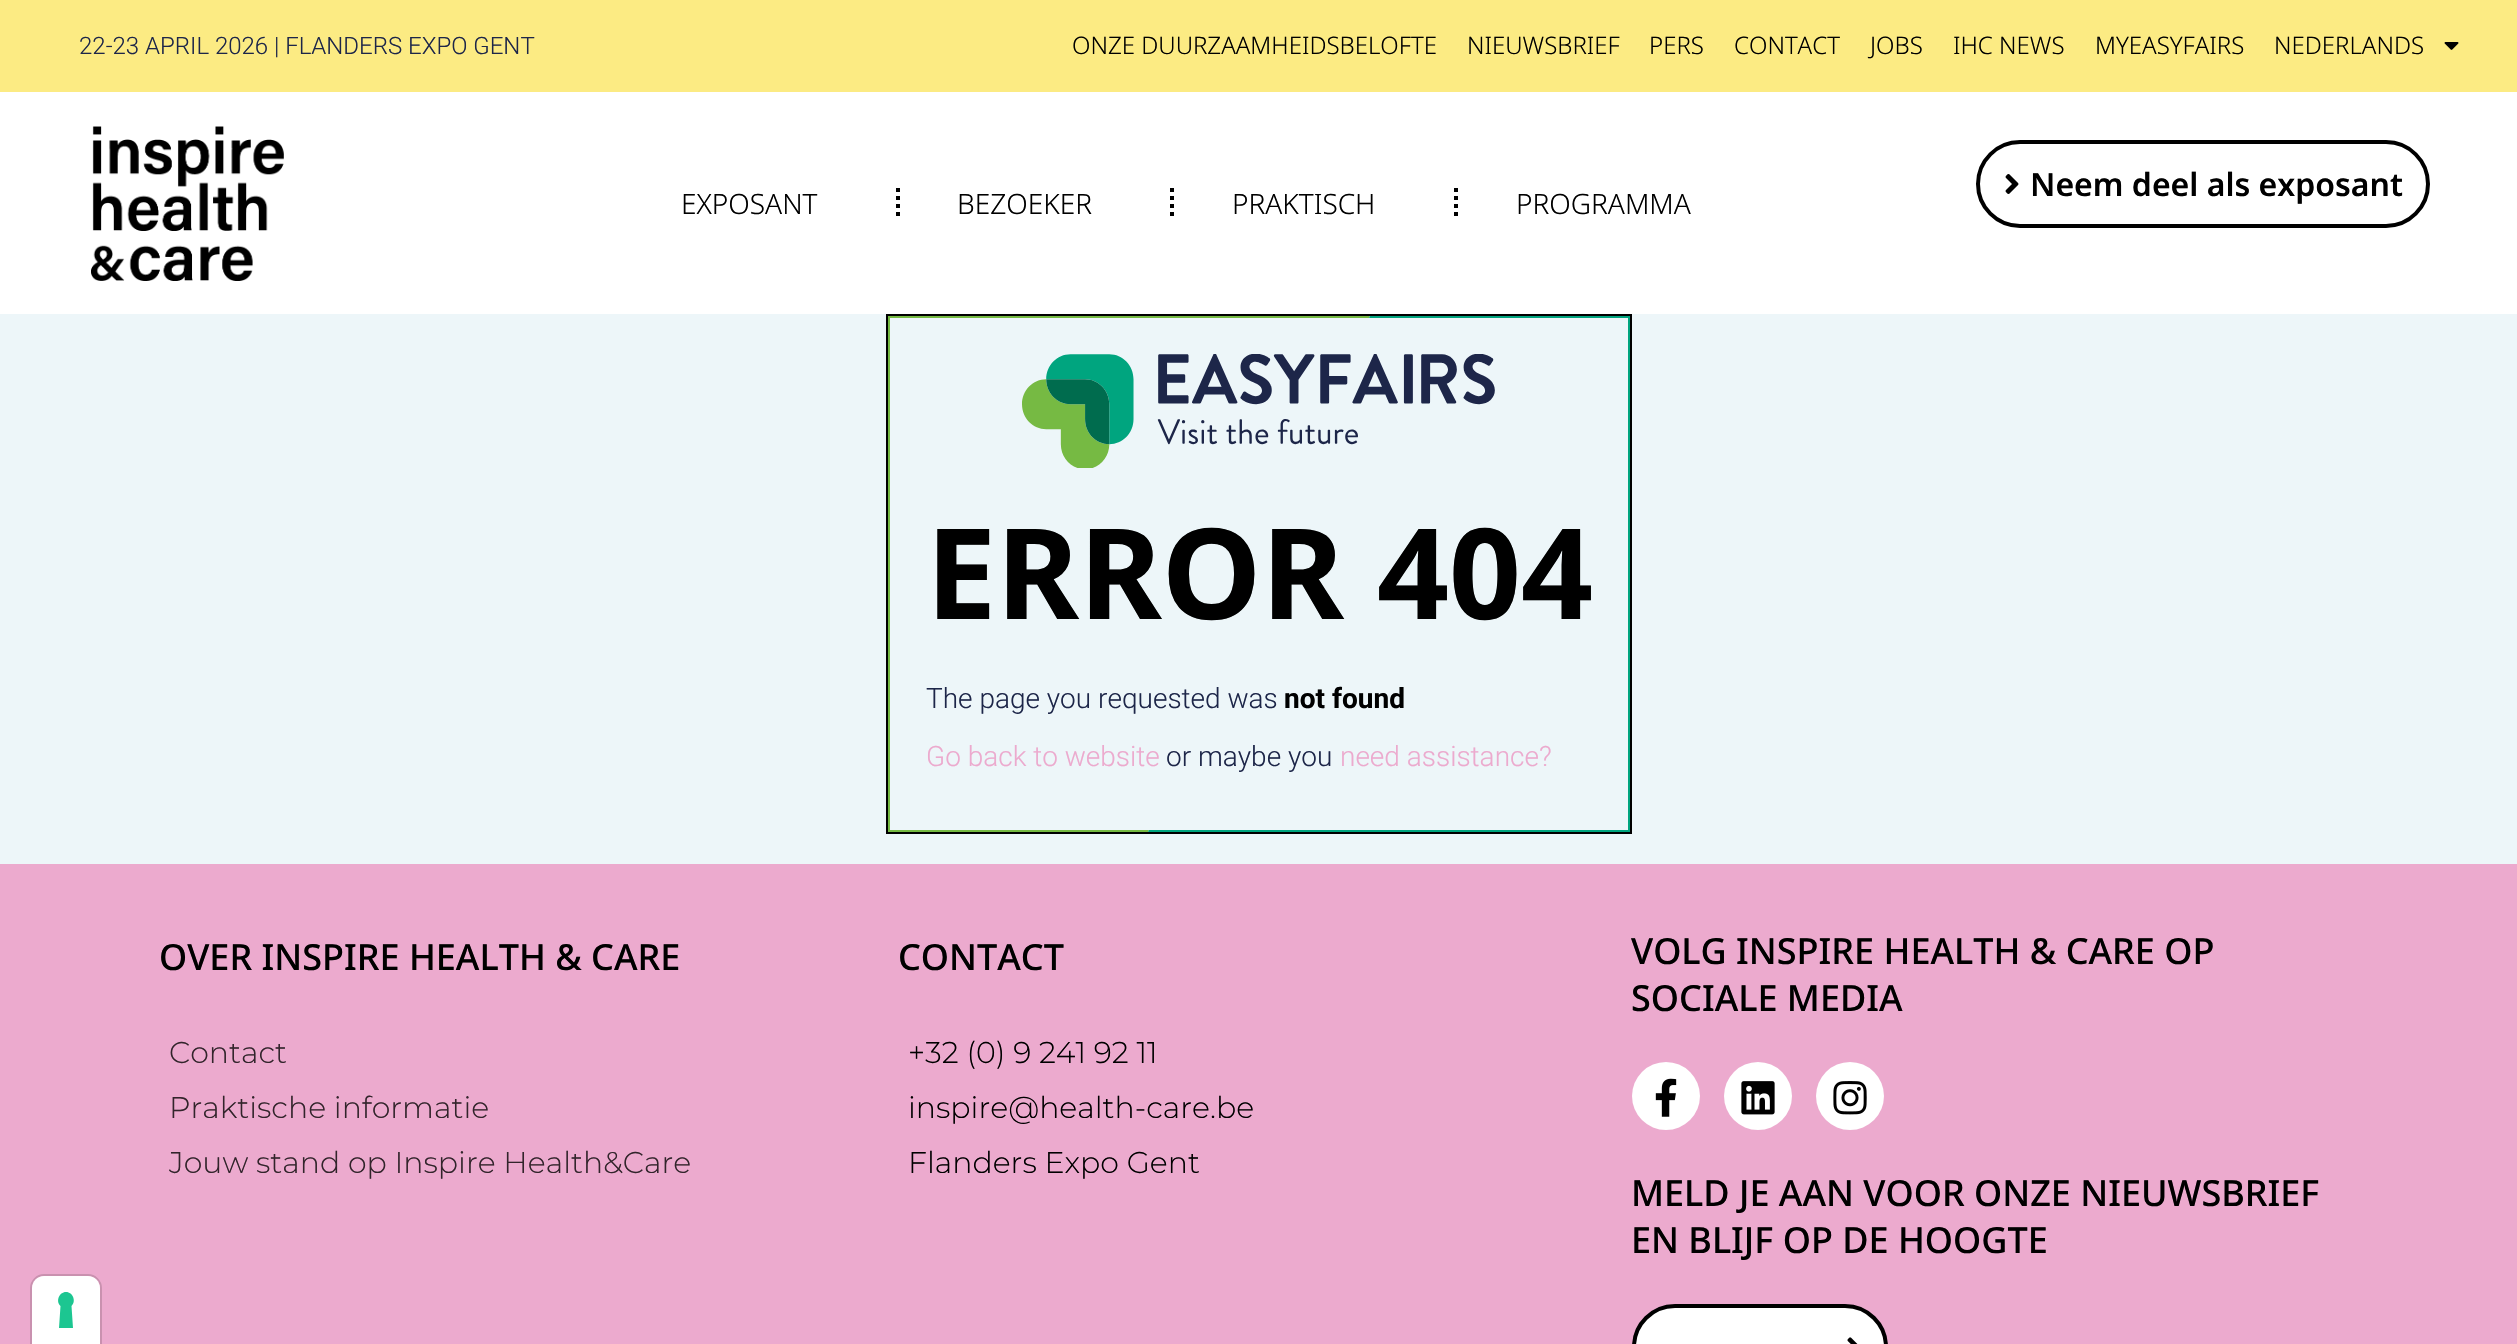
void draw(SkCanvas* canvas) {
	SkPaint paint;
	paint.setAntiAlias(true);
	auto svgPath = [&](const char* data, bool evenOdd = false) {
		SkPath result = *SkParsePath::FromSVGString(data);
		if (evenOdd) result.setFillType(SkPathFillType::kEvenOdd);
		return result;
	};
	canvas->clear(0xffedf6f9);
	paint.setColor(0xfffceb83);
	canvas->drawRect(SkRect::MakeXYWH(0, 0, 2517, 92), paint);
	SkFont f1(fontMgr->matchFamilyStyle("Roboto", SkFontStyle(300, SkFontStyle::kNormal_Width, SkFontStyle::kUpright_Slant)), 24);
	f1.setSubpixel(true);
	paint.setColor(0xff1d2649);
	canvas->drawString("22-23 APRIL 2026 | FLANDERS EXPO GENT", 79, 54, f1, paint);
	SkFont f2(fontMgr->matchFamilyStyle("Noto Sans", SkFontStyle(300, SkFontStyle::kNormal_Width, SkFontStyle::kUpright_Slant)), 24);
	f2.setSubpixel(true);
	paint.setColor(0xff000000);
	canvas->drawString("ONZE DUURZAAMHEIDSBELOFTE", 1072, 54, f2, paint);
	canvas->drawString("NIEUWSBRIEF", 1467, 54, f2, paint);
	canvas->drawString("PERS", 1649, 54, f2, paint);
	canvas->drawString("CONTACT", 1734, 54, f2, paint);
	canvas->drawString("JOBS", 1870, 54, f2, paint);
	canvas->drawString("IHC NEWS", 1953, 54, f2, paint);
	canvas->drawString("MYEASYFAIRS", 2095, 54, f2, paint);
	canvas->drawString("NEDERLANDS", 2274, 54, f2, paint);
	canvas->drawImageRect(SkImages::DeferredFromEncodedData(SkData::MakeFromFileName("img1.png")), SkRect::MakeXYWH(2444, 42, 15, 8), SkSamplingOptions());
	paint.setColor(0xffffffff);
	canvas->drawRect(SkRect::MakeXYWH(0, 92, 2517, 222), paint);
	canvas->drawImageRect(SkImages::DeferredFromEncodedData(SkData::MakeFromFileName("img2.png")), SkRect::MakeXYWH(91, 126, 193, 155), SkSamplingOptions());
	SkFont f3(fontMgr->matchFamilyStyle("Noto Sans", SkFontStyle(300, SkFontStyle::kNormal_Width, SkFontStyle::kUpright_Slant)), 28);
	f3.setSubpixel(true);
	paint.setColor(0xff000000);
	canvas->drawString("EXPOSANT", 681, 214, f3, paint);
	paint.setStroke(true);
	paint.setStrokeWidth(4);
	paint.setPathEffect(SkDashPathEffect::Make({{4, 4}}, 0));
	canvas->drawPath(svgPath("M898 188V220"), paint);
	paint.setPathEffect(nullptr);
	paint.setStroke(false);
	canvas->drawString("BEZOEKER", 957, 214, f3, paint);
	paint.setStroke(true);
	paint.setPathEffect(SkDashPathEffect::Make({{4, 4}}, 0));
	canvas->drawPath(svgPath("M1172 188V220"), paint);
	paint.setPathEffect(nullptr);
	paint.setStroke(false);
	canvas->drawString("PRAKTISCH", 1232, 214, f3, paint);
	paint.setStroke(true);
	paint.setPathEffect(SkDashPathEffect::Make({{4, 4}}, 0));
	canvas->drawPath(svgPath("M1456 188V220"), paint);
	paint.setPathEffect(nullptr);
	paint.setStroke(false);
	canvas->drawString("PROGRAMMA", 1516, 214, f3, paint);
	paint.setStroke(true);
	canvas->drawRoundRect(SkRect::MakeXYWH(1978, 142, 450, 84), 42, 42, paint);
	canvas->drawImageRect(SkImages::DeferredFromEncodedData(SkData::MakeFromFileName("img3.png")), SkRect::MakeXYWH(2005, 174, 14, 20), SkSamplingOptions());
	SkFont f4(fontMgr->matchFamilyStyle("Noto Sans", SkFontStyle(600, SkFontStyle::kNormal_Width, SkFontStyle::kUpright_Slant)), 32);
	f4.setSubpixel(true);
	paint.setStroke(false);
	canvas->drawString("Neem deel als exposant", 2030, 196, f4, paint);
	canvas->drawImageRect(SkImages::DeferredFromEncodedData(SkData::MakeFromFileName("img4.png")), SkRect::MakeXYWH(1022, 354, 473, 114), SkSamplingOptions());
	paint.setStroke(true);
	paint.setStrokeWidth(2);
	canvas->drawRect(SkRect::MakeXYWH(887, 315, 744, 518), paint);
	paint.setStroke(false);
	paint.setColor(0xff76ba43);
	canvas->drawPath(svgPath("M888 316V832H1148L1149 830H890V318H1369L1370 316Z"), paint);
	paint.setColor(0xff00a57f);
	canvas->drawPath(svgPath("M1148 832H1630V316H1370L1369 318H1628V830H1149Z"), paint);
	SkFont f5(fontMgr->matchFamilyStyle("Noto Sans", SkFontStyle::Bold()), 126);
	f5.setSubpixel(true);
	paint.setColor(0xff000000);
	canvas->drawString("ERROR 404", 926, 619, f5, paint);
	SkFont f6(fontMgr->matchFamilyStyle("Roboto", SkFontStyle(300, SkFontStyle::kNormal_Width, SkFontStyle::kUpright_Slant)), 28);
	f6.setSubpixel(true);
	paint.setColor(0xff1d2649);
	canvas->drawString("The page you requested was", 926, 708, f6, paint);
	SkFont f7(fontMgr->matchFamilyStyle("Roboto", SkFontStyle::Bold()), 28);
	f7.setSubpixel(true);
	paint.setColor(0xff000000);
	canvas->drawString("not found", 1284, 708, f7, paint);
	paint.setColor(0xffecaace);
	canvas->drawString("Go back to website", 926, 766, f6, paint);
	paint.setColor(0xff1d2649);
	canvas->drawString("or maybe you", 1166, 766, f6, paint);
	paint.setColor(0xffecaace);
	canvas->drawString("need assistance?", 1340, 766, f6, paint);
	canvas->drawRect(SkRect::MakeXYWH(0, 864, 2517, 480), paint);
	SkFont f8(fontMgr->matchFamilyStyle("Noto Sans", SkFontStyle(500, SkFontStyle::kNormal_Width, SkFontStyle::kUpright_Slant)), 36);
	f8.setSubpixel(true);
	paint.setColor(0xff000000);
	canvas->drawString("OVER INSPIRE HEALTH & CARE", 159, 970, f8, paint);
	SkFont f9(fontMgr->matchFamilyStyle("Montserrat", SkFontStyle(300, SkFontStyle::kNormal_Width, SkFontStyle::kUpright_Slant)), 30);
	f9.setSubpixel(true);
	paint.setColor(0xff32242b);
	canvas->drawString("Contact", 169, 1063, f9, paint);
	canvas->drawString("Praktische informatie", 169, 1118, f9, paint);
	canvas->drawString("Jouw stand op Inspire Health&Care", 169, 1173, f9, paint);
	paint.setColor(0xff000000);
	canvas->drawString("CONTACT", 898, 970, f8, paint);
	canvas->drawString("+32 (0) 9 241 92 11", 908, 1063, f9, paint);
	canvas->drawString("inspire@health-care.be", 908, 1118, f9, paint);
	canvas->drawString("Flanders Expo Gent", 908, 1173, f9, paint);
	canvas->drawString("VOLG INSPIRE HEALTH & CARE OP", 1631, 964, f8, paint);
	canvas->drawString("SOCIALE MEDIA", 1631, 1011, f8, paint);
	paint.setColor(0xffffffff);
	canvas->drawCircle(1666, 1096, 34, paint);
	canvas->drawImageRect(SkImages::DeferredFromEncodedData(SkData::MakeFromFileName("img5.png")), SkRect::MakeXYWH(1655, 1078, 22, 39), SkSamplingOptions());
	canvas->drawCircle(1758, 1096, 34, paint);
	canvas->drawImageRect(SkImages::DeferredFromEncodedData(SkData::MakeFromFileName("img6.png")), SkRect::MakeXYWH(1741, 1081, 34, 34), SkSamplingOptions());
	canvas->drawCircle(1850, 1096, 34, paint);
	canvas->drawImageRect(SkImages::DeferredFromEncodedData(SkData::MakeFromFileName("img7.png")), SkRect::MakeXYWH(1833, 1081, 34, 34), SkSamplingOptions());
	paint.setColor(0xff000000);
	canvas->drawString("MELD JE AAN VOOR ONZE NIEUWSBRIEF", 1631, 1206, f8, paint);
	canvas->drawString("EN BLIJF OP DE HOOGTE", 1631, 1253, f8, paint);
	paint.setColor(0xffffffff);
	canvas->drawRoundRect(SkRect::MakeXYWH(1634, 1306, 252, 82), 41, 41, paint);
	paint.setStroke(true);
	paint.setStrokeWidth(4);
	paint.setColor(0xff000000);
	canvas->drawRoundRect(SkRect::MakeXYWH(1634, 1306, 252, 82), 41, 41, paint);
	canvas->drawImageRect(SkImages::DeferredFromEncodedData(SkData::MakeFromFileName("img8.png")), SkRect::MakeXYWH(1847, 1337, 11, 7), SkSamplingOptions());
	paint.setStrokeWidth(2);
	paint.setColor(0xffc991af);
	canvas->drawPath(svgPath("M44 1275H88C95 1275 101 1281 101 1288V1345H31V1288C31 1281 37 1275 44 1275Z"), paint);
	paint.setStroke(false);
	paint.setColor(0xffffffff);
	canvas->drawPath(svgPath("M44 1276H88C94.5 1276 100 1281.5 100 1288V1344H32V1288C32 1281.5 37.5 1276 44 1276Z"), paint);
	paint.setColor(0xff1cc691);
	canvas->drawPath(svgPath("M66 1292C73 1292 76.5 1301.5 71.5 1306L73 1328H59L60.5 1306C55.5 1301.5 59 1292 66 1292Z", true), paint);
}
